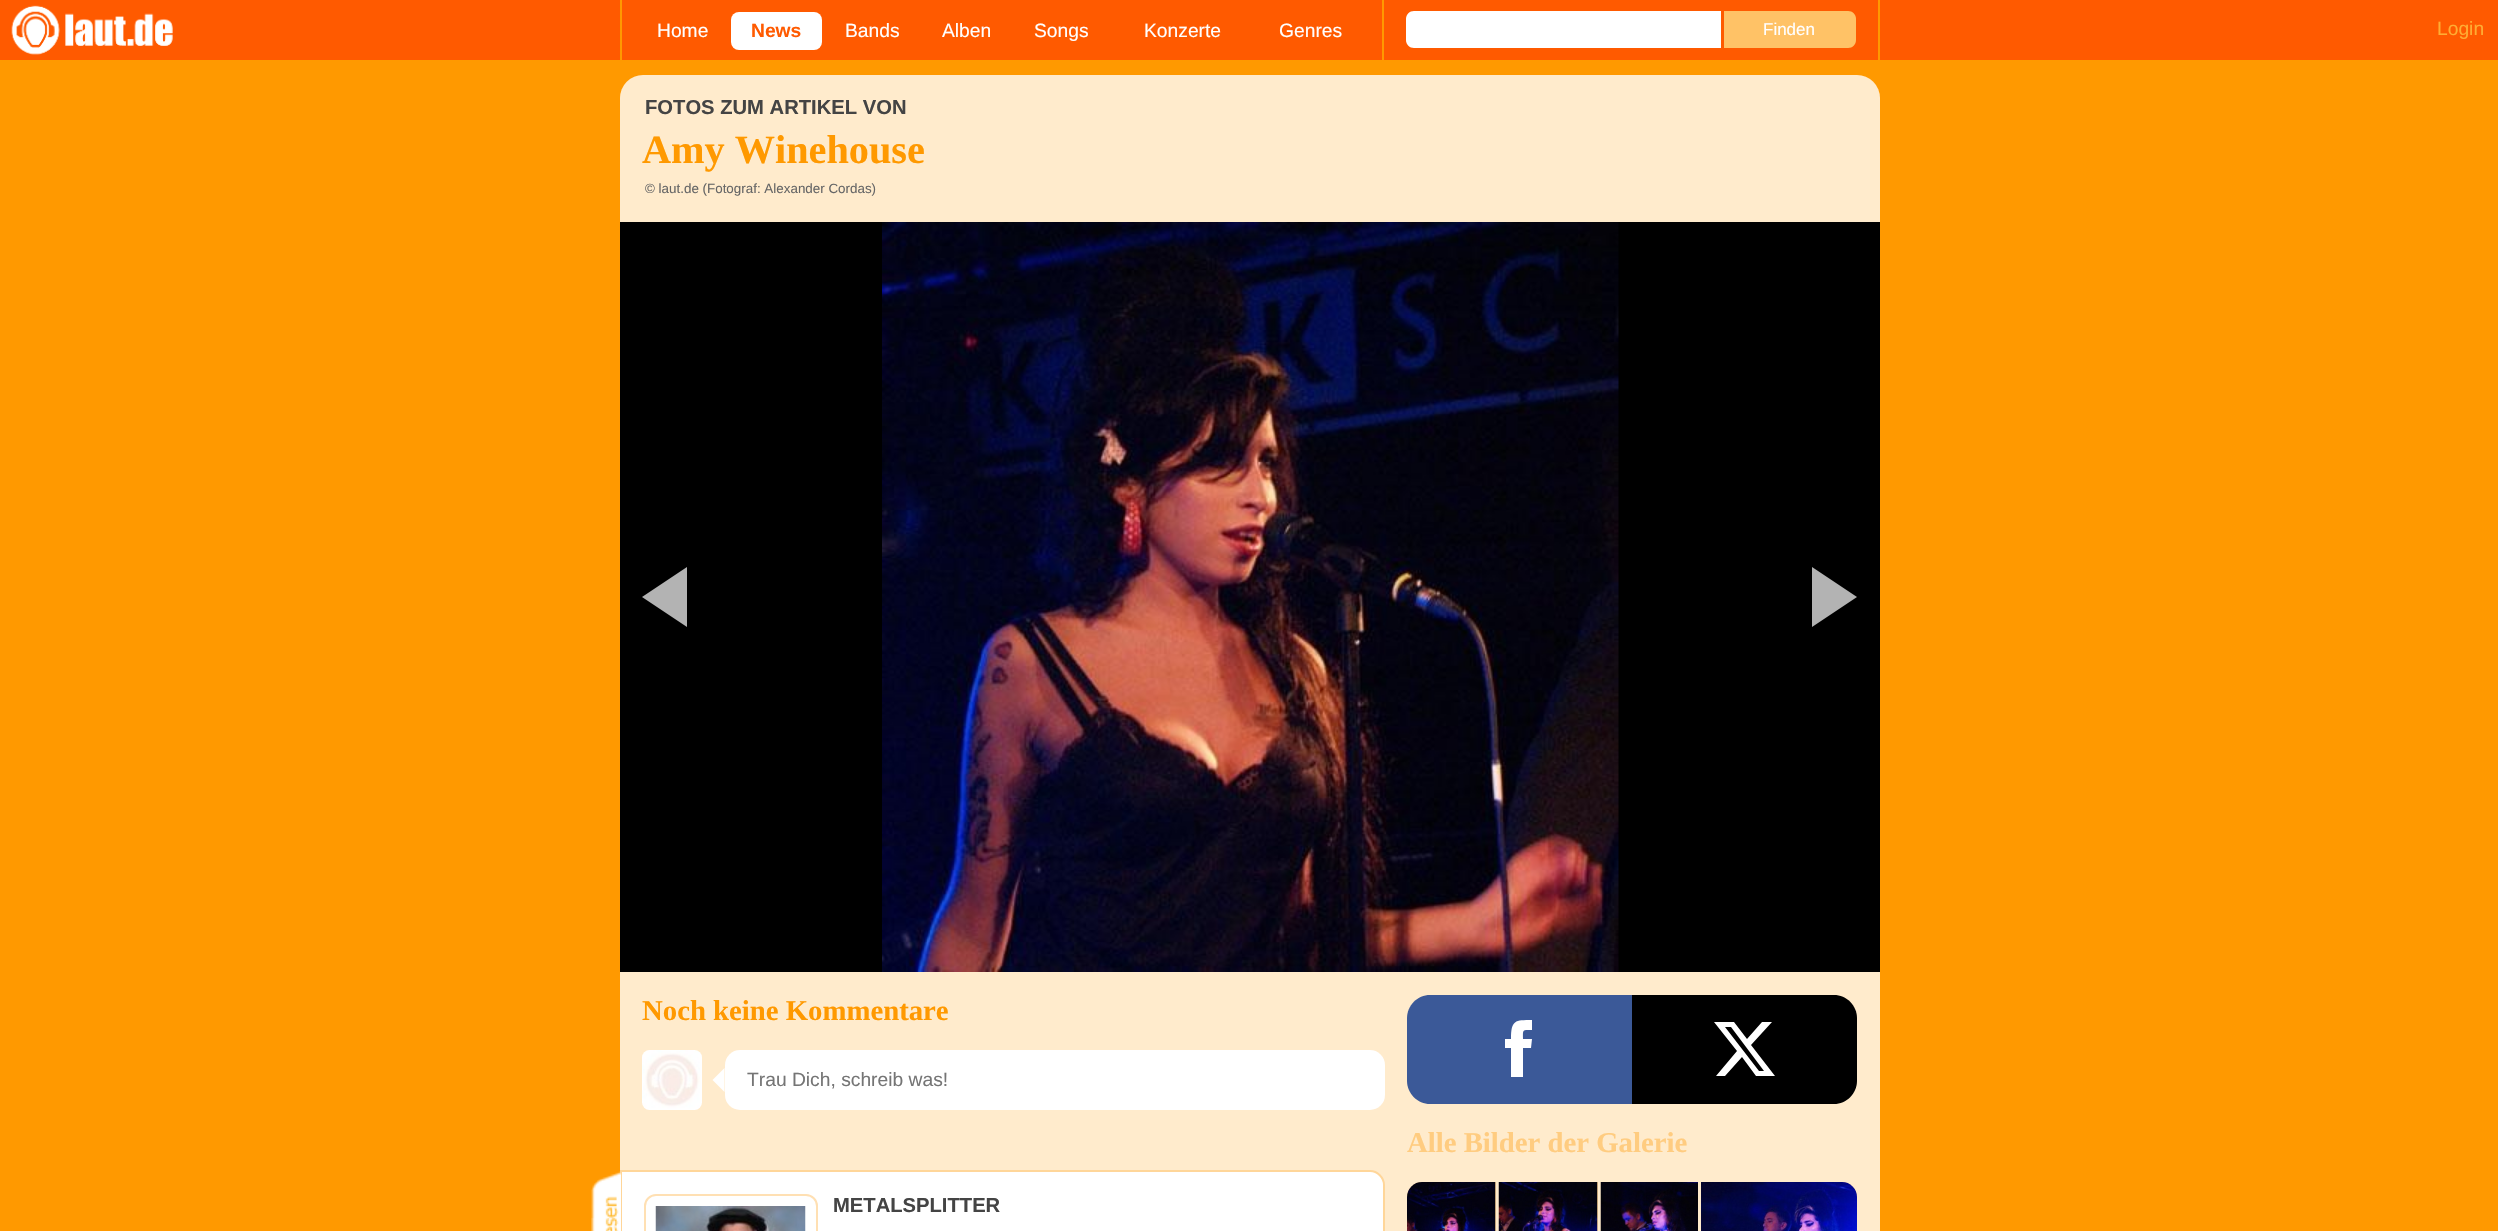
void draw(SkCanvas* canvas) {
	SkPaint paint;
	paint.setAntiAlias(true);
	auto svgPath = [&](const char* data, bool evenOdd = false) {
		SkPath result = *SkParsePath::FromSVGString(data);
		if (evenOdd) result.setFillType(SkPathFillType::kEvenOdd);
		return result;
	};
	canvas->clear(0xffff9900);
	paint.setColor(0xffff5a00);
	canvas->drawRect(SkRect::MakeXYWH(0, 0, 2498, 60), paint);
	canvas->drawImageRect(SkImages::DeferredFromEncodedData(SkData::MakeFromFileName("img1.png")), SkRect::MakeXYWH(11, 5, 162, 50), SkSamplingOptions());
	paint.setColor(0xffff9900);
	canvas->drawRect(SkRect::MakeXYWH(620, 0, 2, 60), paint);
	SkFont f1(fontMgr->matchFamilyStyle("Liberation Sans", SkFontStyle::Normal()), 19.25);
	f1.setSubpixel(true);
	paint.setColor(0xffffffff);
	canvas->drawString("Home", 657, 37, f1, paint);
	canvas->drawRoundRect(SkRect::MakeXYWH(731, 12, 91, 38), 8, 8, paint);
	SkFont f2(fontMgr->matchFamilyStyle("Liberation Sans", SkFontStyle::Bold()), 19.25);
	f2.setSubpixel(true);
	paint.setColor(0xffff5a00);
	canvas->drawString("News", 751, 37, f2, paint);
	paint.setColor(0xffffffff);
	canvas->drawString("Bands", 845, 37, f1, paint);
	canvas->drawString("Alben", 942, 37, f1, paint);
	canvas->drawString("Songs", 1034, 37, f1, paint);
	canvas->drawString("Konzerte", 1144, 37, f1, paint);
	canvas->drawString("Genres", 1279, 37, f1, paint);
	paint.setColor(0xffff9900);
	canvas->drawRect(SkRect::MakeXYWH(1878, 0, 2, 60), paint);
	canvas->drawRect(SkRect::MakeXYWH(1382, 0, 2, 60), paint);
	paint.setColor(0xffffffff);
	canvas->drawPath(svgPath("M1414 11H1721V48H1414C1409.5 48 1406 44.5 1406 40V19C1406 14.5 1409.5 11 1414 11Z"), paint);
	paint.setColor(0xffffc266);
	canvas->drawPath(svgPath("M1724 11H1848C1852.5 11 1856 14.5 1856 19V40C1856 44.5 1852.5 48 1848 48H1724Z"), paint);
	SkFont f3(fontMgr->matchFamilyStyle("Liberation Sans", SkFontStyle::Normal()), 17);
	f3.setSubpixel(true);
	paint.setColor(0xffffffff);
	canvas->drawString("Finden", 1763, 35, f3, paint);
	paint.setColor(0xffffad33);
	canvas->drawString("Login", 2437, 35, f1, paint);
	paint.setColor(0xffffebcc);
	canvas->drawRoundRect(SkRect::MakeXYWH(620, 75, 1260, 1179), 23, 23, paint);
	SkFont f4(fontMgr->matchFamilyStyle("Liberation Sans", SkFontStyle::Bold()), 20.2);
	f4.setSubpixel(true);
	paint.setColor(0xff444444);
	canvas->drawString("FOTOS ZUM ARTIKEL VON", 645, 114, f4, paint);
	SkFont f5(fontMgr->matchFamilyStyle("Liberation Serif", SkFontStyle::Bold()), 40.25);
	f5.setSubpixel(true);
	paint.setColor(0xffff9900);
	canvas->drawString("Amy Winehouse", 642, 163, f5, paint);
	SkFont f6(fontMgr->matchFamilyStyle("Liberation Sans", SkFontStyle::Normal()), 13.4);
	f6.setSubpixel(true);
	paint.setColor(0xff666666);
	canvas->drawString("© laut.de (Fotograf: Alexander Cordas)", 645, 193, f6, paint);
	paint.setColor(0xff000000);
	canvas->drawRect(SkRect::MakeXYWH(620, 222, 1260, 750), paint);
	paint.setColor(0xffb3b3b3);
	canvas->drawPath(svgPath("M687 567V627L642 597Z"), paint);
	canvas->drawImageRect(SkImages::DeferredFromEncodedData(SkData::MakeFromFileName("img2.png")), SkRect::MakeXYWH(882, 222, 737, 750), SkSamplingOptions());
	canvas->drawPath(svgPath("M1812 627V567L1857 597Z"), paint);
	SkFont f7(fontMgr->matchFamilyStyle("Liberation Serif", SkFontStyle::Bold()), 28.75);
	f7.setSubpixel(true);
	paint.setColor(0xffff9900);
	canvas->drawString("Noch keine Kommentare", 642, 1020, f7, paint);
	canvas->drawImageRect(SkImages::DeferredFromEncodedData(SkData::MakeFromFileName("img3.png")), SkRect::MakeXYWH(642, 1050, 60, 60), SkSamplingOptions());
	paint.setColor(0xffffffff);
	canvas->drawPath(svgPath("M724.5 1068V1092L712.5 1080Z"), paint);
	canvas->drawRoundRect(SkRect::MakeXYWH(725, 1050, 660, 60), 15, 15, paint);
	paint.setColor(0xff757575);
	canvas->drawString("Trau Dich, schreib was!", 747, 1086, f1, paint);
	paint.setColor(0xffffffff);
	canvas->drawPath(svgPath("M621 1171H1370C1377.5 1171 1384 1177.5 1384 1185V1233C1384 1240.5 1377.5 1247 1370 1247H621Z"), paint);
	paint.setStroke(true);
	paint.setStrokeWidth(2);
	paint.setColor(0xffffd699);
	canvas->drawPath(svgPath("M621 1171H1370C1377.5 1171 1384 1177.5 1384 1185V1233C1384 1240.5 1377.5 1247 1370 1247H621Z"), paint);
	canvas->drawImageRect(SkImages::DeferredFromEncodedData(SkData::MakeFromFileName("img4.png")), SkRect::MakeXYWH(591, 1171, 30, 60), SkSamplingOptions());
	paint.setColor(0xffffe0b3);
	canvas->drawRoundRect(SkRect::MakeXYWH(645, 1195, 172, 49), 11, 11, paint);
	canvas->drawImageRect(SkImages::DeferredFromEncodedData(SkData::MakeFromFileName("img5.png")), SkRect::MakeXYWH(655, 1206, 151, 25), SkSamplingOptions());
	paint.setStroke(false);
	paint.setColor(0xff444444);
	canvas->drawString("METALSPLITTER", 833, 1212, f4, paint);
	paint.setColor(0xff3b5998);
	canvas->drawPath(svgPath("M1430 995H1632V1104H1430C1417.5 1104 1407 1093.5 1407 1081V1018C1407 1005.5 1417.5 995 1430 995Z"), paint);
	paint.setColor(0xffffffff);
	canvas->drawPath(svgPath("M1523 1077V1048H1531L1532 1039H1523C1523 1029 1522 1030 1532 1030V1020C1515 1020 1511 1020 1511 1039H1505V1048H1511V1077Z", true), paint);
	paint.setColor(0xff000000);
	canvas->drawPath(svgPath("M1632 995H1834C1846.5 995 1857 1005.5 1857 1018V1081C1857 1093.5 1846.5 1104 1834 1104H1632Z"), paint);
	paint.setColor(0xffffffff);
	canvas->drawPath(svgPath("M1762 1022H1772L1751 1045L1775 1076H1756L1742 1057L1725 1076H1716L1737 1051L1714 1022H1734L1747 1039ZM1759 1071H1764L1731 1027H1725Z"), paint);
	paint.setColor(0xffffcc80);
	canvas->drawString("Alle Bilder der Galerie", 1407, 1152, f7, paint);
	paint.setColor(0xffffd699);
	canvas->drawRoundRect(SkRect::MakeXYWH(1407, 1182, 450, 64), 15, 15, paint);
	paint.setColor(0xffffebcc);
	canvas->drawRect(SkRect::MakeXYWH(1496, 1182, 3, 49), paint);
	canvas->drawImageRect(SkImages::DeferredFromEncodedData(SkData::MakeFromFileName("img6.png")), SkRect::MakeXYWH(1407, 1182, 89, 49), SkSamplingOptions());
	canvas->drawRect(SkRect::MakeXYWH(1598, 1182, 3, 49), paint);
	canvas->drawImageRect(SkImages::DeferredFromEncodedData(SkData::MakeFromFileName("img7.png")), SkRect::MakeXYWH(1498, 1182, 100, 49), SkSamplingOptions());
	canvas->drawRect(SkRect::MakeXYWH(1698, 1182, 3, 49), paint);
	canvas->drawImageRect(SkImages::DeferredFromEncodedData(SkData::MakeFromFileName("img8.png")), SkRect::MakeXYWH(1600, 1182, 98, 49), SkSamplingOptions());
	canvas->drawImageRect(SkImages::DeferredFromEncodedData(SkData::MakeFromFileName("img9.png")), SkRect::MakeXYWH(1701, 1182, 156, 49), SkSamplingOptions());
}
